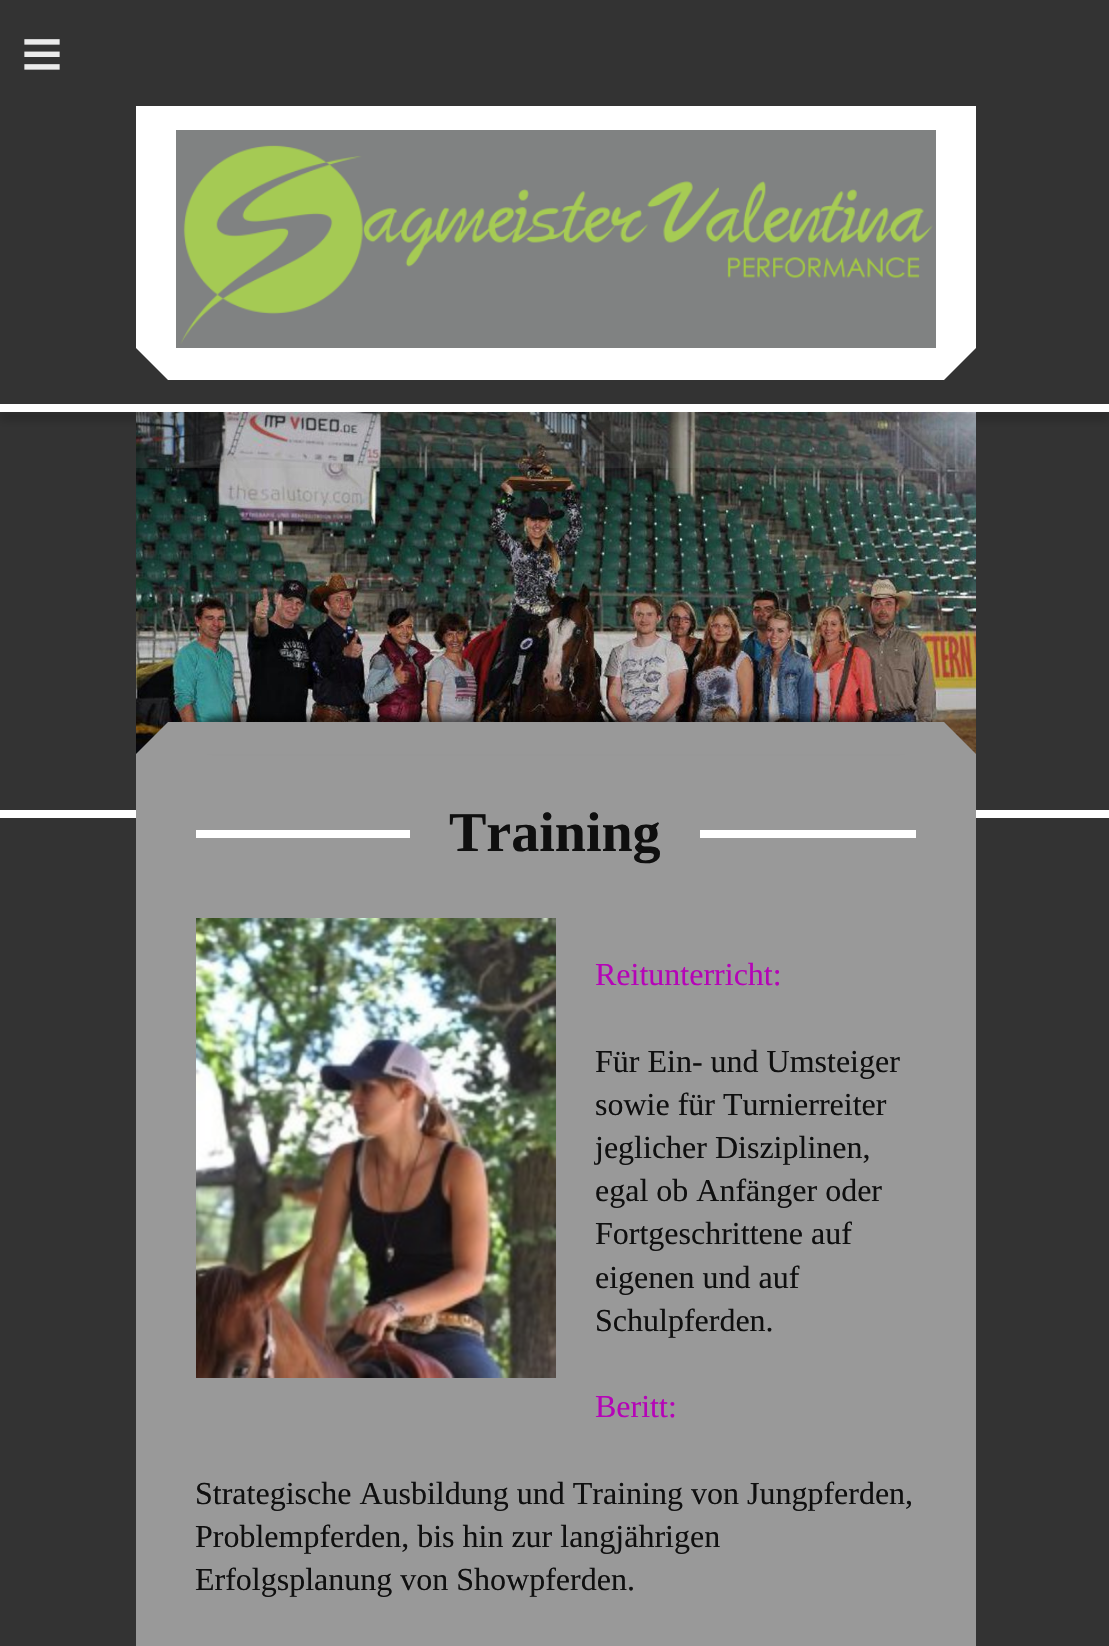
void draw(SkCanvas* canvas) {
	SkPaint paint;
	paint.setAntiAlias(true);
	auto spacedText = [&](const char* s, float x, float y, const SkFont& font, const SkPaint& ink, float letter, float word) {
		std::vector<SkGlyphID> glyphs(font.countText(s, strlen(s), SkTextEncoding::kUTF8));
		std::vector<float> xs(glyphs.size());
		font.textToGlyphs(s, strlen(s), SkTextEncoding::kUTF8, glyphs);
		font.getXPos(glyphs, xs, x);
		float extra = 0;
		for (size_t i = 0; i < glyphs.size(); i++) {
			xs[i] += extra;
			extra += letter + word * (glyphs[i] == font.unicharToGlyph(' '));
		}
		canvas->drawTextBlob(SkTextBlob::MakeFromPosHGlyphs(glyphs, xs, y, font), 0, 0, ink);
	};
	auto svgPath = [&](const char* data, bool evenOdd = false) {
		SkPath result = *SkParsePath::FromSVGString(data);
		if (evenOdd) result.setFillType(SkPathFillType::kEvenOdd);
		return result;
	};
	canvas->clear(0xff333333);
	SkFont f1(fontMgr->matchFamilyStyle("Liberation Sans", SkFontStyle::Normal()), 72);
	f1.setSubpixel(true);
	paint.setColor(0xffebebeb);
	spacedText("≡", 21, 78, f1, paint, 21, 0);
	paint.setColor(0xffffffff);
	canvas->drawRect(SkRect::MakeXYWH(136, 106, 840, 242), paint);
	canvas->drawImageRect(SkImages::DeferredFromEncodedData(SkData::MakeFromFileName("img1.png")), SkRect::MakeXYWH(176, 130, 760, 218), SkSamplingOptions());
	canvas->drawPath(svgPath("M136 348H976L944 380H168Z"), paint);
	canvas->drawImageRect(SkImages::DeferredFromEncodedData(SkData::MakeFromFileName("img2.png")), SkRect::MakeXYWH(136, 412, 840, 342), SkSamplingOptions());
	paint.setColor(0x1c999999);
	canvas->drawRect(SkRect::MakeXYWH(136, 412, 840, 56), paint);
	paint.setColor(0x33000000);
	paint.setMaskFilter(SkMaskFilter::MakeBlur(kNormal_SkBlurStyle, 4));
	canvas->drawRect(SkRect::MakeXYWH(0, 412, 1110, 8), paint);
	paint.setMaskFilter(nullptr);
	paint.setColor(0xffffffff);
	canvas->drawRect(SkRect::MakeXYWH(0, 404, 1109, 8), paint);
	canvas->drawRect(SkRect::MakeXYWH(0, 810, 1109, 8), paint);
	paint.setColor(0xff999999);
	canvas->drawRect(SkRect::MakeXYWH(136, 754, 840, 892), paint);
	paint.setColor(0x80000000);
	paint.setMaskFilter(SkMaskFilter::MakeBlur(kNormal_SkBlurStyle, 3));
	canvas->drawRoundRect(SkRect::MakeXYWH(200, 716, 712, 32), 16, 16, paint);
	paint.setMaskFilter(nullptr);
	paint.setColor(0xff999999);
	canvas->drawPath(svgPath("M976 754H136L168 722H944Z"), paint);
	paint.setColor(0xffffffff);
	canvas->drawRect(SkRect::MakeXYWH(196, 830, 720, 8), paint);
	paint.setColor(0xff999999);
	canvas->drawRect(SkRect::MakeXYWH(410, 830, 290, 8), paint);
	SkFont f2(fontMgr->matchFamilyStyle("Liberation Serif", SkFontStyle::Bold()), 56);
	f2.setSubpixel(true);
	paint.setColor(0xff0f0f0f);
	canvas->drawString("Training", 449, 851, f2, paint);
	canvas->drawImageRect(SkImages::DeferredFromEncodedData(SkData::MakeFromFileName("img3.png")), SkRect::MakeXYWH(196, 918, 360, 460), SkSamplingOptions());
	SkFont f3(fontMgr->matchFamilyStyle("Liberation Serif", SkFontStyle::Normal()), 32);
	f3.setSubpixel(true);
	paint.setColor(0xffb504b7);
	canvas->drawString("Reitunterricht:", 595, 985, f3, paint);
	paint.setColor(0xff0f0f0f);
	canvas->drawString("Für Ein- und Umsteiger", 595, 1072, f3, paint);
	canvas->drawString("sowie für Turnierreiter", 595, 1115, f3, paint);
	canvas->drawString("jeglicher Disziplinen,", 595, 1158, f3, paint);
	canvas->drawString("egal ob Anfänger oder", 595, 1201, f3, paint);
	canvas->drawString("Fortgeschrittene auf", 595, 1244, f3, paint);
	canvas->drawString("eigenen und auf", 595, 1288, f3, paint);
	canvas->drawString("Schulpferden.", 595, 1331, f3, paint);
	paint.setColor(0xffb504b7);
	canvas->drawString("Beritt:", 595, 1417, f3, paint);
	paint.setColor(0xff0f0f0f);
	canvas->drawString("Strategische Ausbildung und Training von Jungpferden,", 195, 1504, f3, paint);
	canvas->drawString("Problempferden, bis hin zur langjährigen", 195, 1547, f3, paint);
	canvas->drawString("Erfolgsplanung von Showpferden.", 195, 1590, f3, paint);
}
